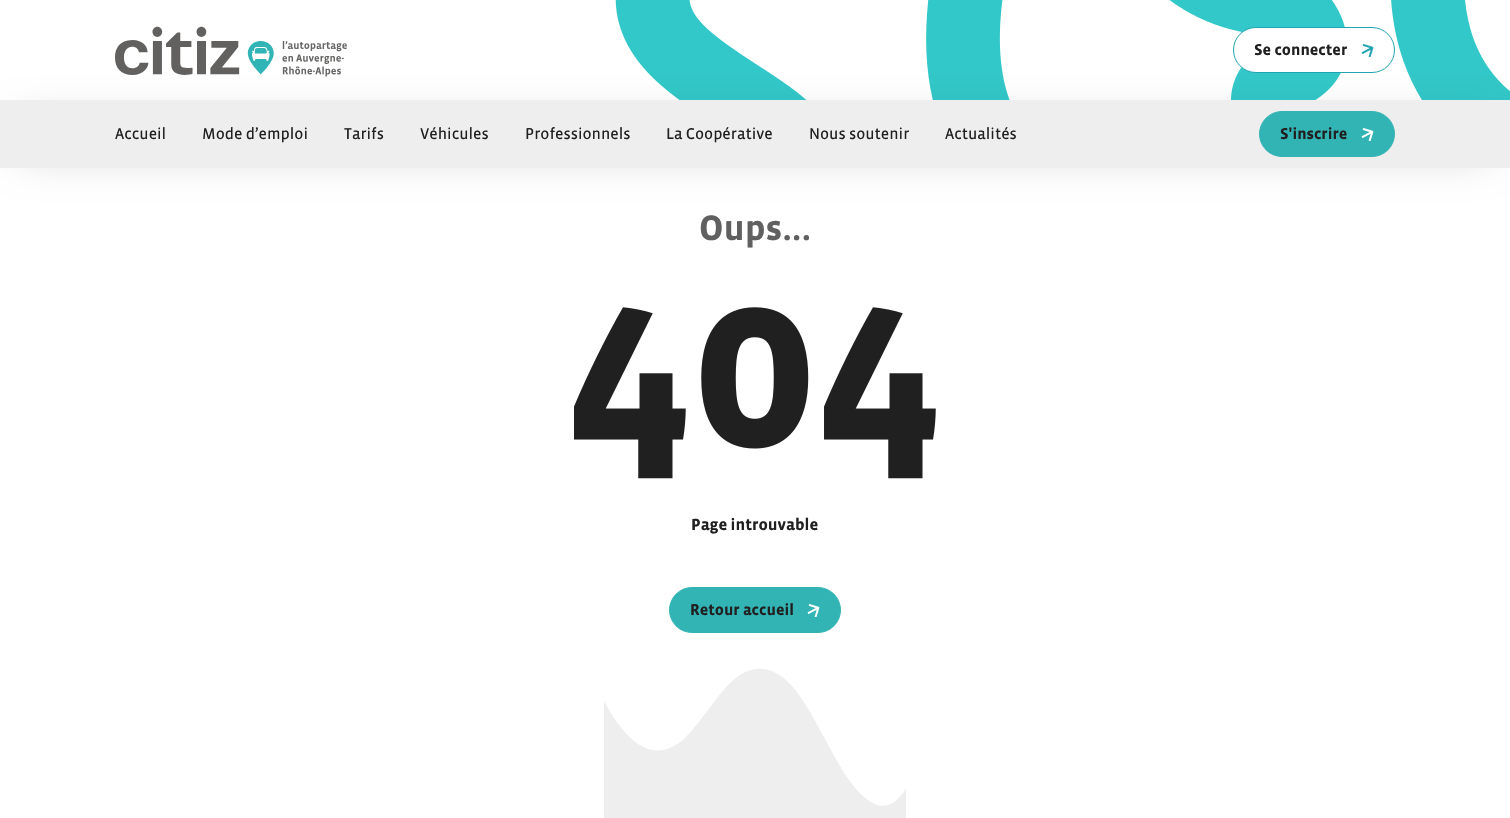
void draw(SkCanvas* canvas) {
	SkPaint paint;
	paint.setAntiAlias(true);
	auto svgPath = [&](const char* data, bool evenOdd = false) {
		SkPath result = *SkParsePath::FromSVGString(data);
		if (evenOdd) result.setFillType(SkPathFillType::kEvenOdd);
		return result;
	};
	canvas->clear(0xffffffff);
	canvas->drawImageRect(SkImages::DeferredFromEncodedData(SkData::MakeFromFileName("img1.png")), SkRect::MakeXYWH(115, 26, 232, 51), SkSamplingOptions());
	canvas->drawImageRect(SkImages::DeferredFromEncodedData(SkData::MakeFromFileName("img2.png")), SkRect::MakeXYWH(615, 0, 895, 100), SkSamplingOptions());
	paint.setColor(0xffffffff);
	canvas->drawRoundRect(SkRect::MakeXYWH(1233.5, 27.5, 161, 45), 22.5, 22.5, paint);
	paint.setStroke(true);
	paint.setStrokeWidth(1);
	paint.setColor(0xff20a4b0);
	canvas->drawRoundRect(SkRect::MakeXYWH(1233.5, 27.5, 161, 45), 22.5, 22.5, paint);
	SkFont f1(fontMgr->matchFamilyStyle("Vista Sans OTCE", SkFontStyle::Bold()), 16);
	f1.setSubpixel(true);
	paint.setStroke(false);
	paint.setColor(0xff202020);
	canvas->drawString("Se connecter", 1254, 55, f1, paint);
	canvas->drawImageRect(SkImages::DeferredFromEncodedData(SkData::MakeFromFileName("img3.png")), SkRect::MakeXYWH(1361, 44, 13, 13), SkSamplingOptions());
	paint.setColor(0x40000000);
	paint.setMaskFilter(SkMaskFilter::MakeBlur(kNormal_SkBlurStyle, 21.5));
	canvas->drawRect(SkRect::MakeXYWH(21, 125, 1468, 26), paint);
	paint.setMaskFilter(nullptr);
	paint.setColor(0xffeeeeee);
	canvas->drawRect(SkRect::MakeXYWH(0, 100, 1510, 68), paint);
	SkFont f2(fontMgr->matchFamilyStyle("Vista Sans OTCE", SkFontStyle::Normal()), 16);
	f2.setSubpixel(true);
	paint.setColor(0xff202020);
	canvas->drawString("Accueil", 115, 139, f2, paint);
	canvas->drawString("Mode d’emploi", 202, 139, f2, paint);
	canvas->drawString("Tarifs", 344, 139, f2, paint);
	canvas->drawString("Véhicules", 420, 139, f2, paint);
	canvas->drawString("Professionnels", 525, 139, f2, paint);
	canvas->drawString("La Coopérative", 666, 139, f2, paint);
	canvas->drawString("Nous soutenir", 809, 139, f2, paint);
	canvas->drawString("Actualités", 945, 139, f2, paint);
	paint.setColor(0xff32b4b5);
	canvas->drawRoundRect(SkRect::MakeXYWH(1259.5, 111.5, 135, 45), 22.5, 22.5, paint);
	paint.setStroke(true);
	canvas->drawRoundRect(SkRect::MakeXYWH(1259.5, 111.5, 135, 45), 22.5, 22.5, paint);
	paint.setStroke(false);
	paint.setColor(0xff202020);
	canvas->drawString("S'inscrire", 1280, 139, f1, paint);
	canvas->drawImageRect(SkImages::DeferredFromEncodedData(SkData::MakeFromFileName("img4.png")), SkRect::MakeXYWH(1361, 128, 13, 13), SkSamplingOptions());
	SkFont f3(fontMgr->matchFamilyStyle("Vista Sans OTCE", SkFontStyle::Bold()), 36);
	f3.setSubpixel(true);
	paint.setColor(0xff616060);
	canvas->drawString("Oups...", 699, 240, f3, paint);
	canvas->drawImageRect(SkImages::DeferredFromEncodedData(SkData::MakeFromFileName("img5.png")), SkRect::MakeXYWH(574, 307, 362, 172), SkSamplingOptions());
	SkFont f4(fontMgr->matchFamilyStyle("Vista Sans OTCE", SkFontStyle::Bold()), 16.5);
	f4.setSubpixel(true);
	paint.setColor(0xff202020);
	canvas->drawString("Page introuvable", 691, 530, f4, paint);
	paint.setColor(0xff32b4b5);
	canvas->drawRoundRect(SkRect::MakeXYWH(669.5, 587.5, 171, 45), 22.5, 22.5, paint);
	paint.setStroke(true);
	canvas->drawRoundRect(SkRect::MakeXYWH(669.5, 587.5, 171, 45), 22.5, 22.5, paint);
	paint.setStroke(false);
	paint.setColor(0xff202020);
	canvas->drawString("Retour accueil", 690, 615, f1, paint);
	canvas->drawImageRect(SkImages::DeferredFromEncodedData(SkData::MakeFromFileName("img4.png")), SkRect::MakeXYWH(807, 604, 13, 13), SkSamplingOptions());
	paint.setColor(0xffeeeeee);
	canvas->drawPath(svgPath("M852 784C832 758 811 706 791 685C770 663 749 664 728 685C714 700 699 724 685 738C658 763 630 750 604 701V818H906V788C889 817 870 807 852 784Z"), paint);
}
